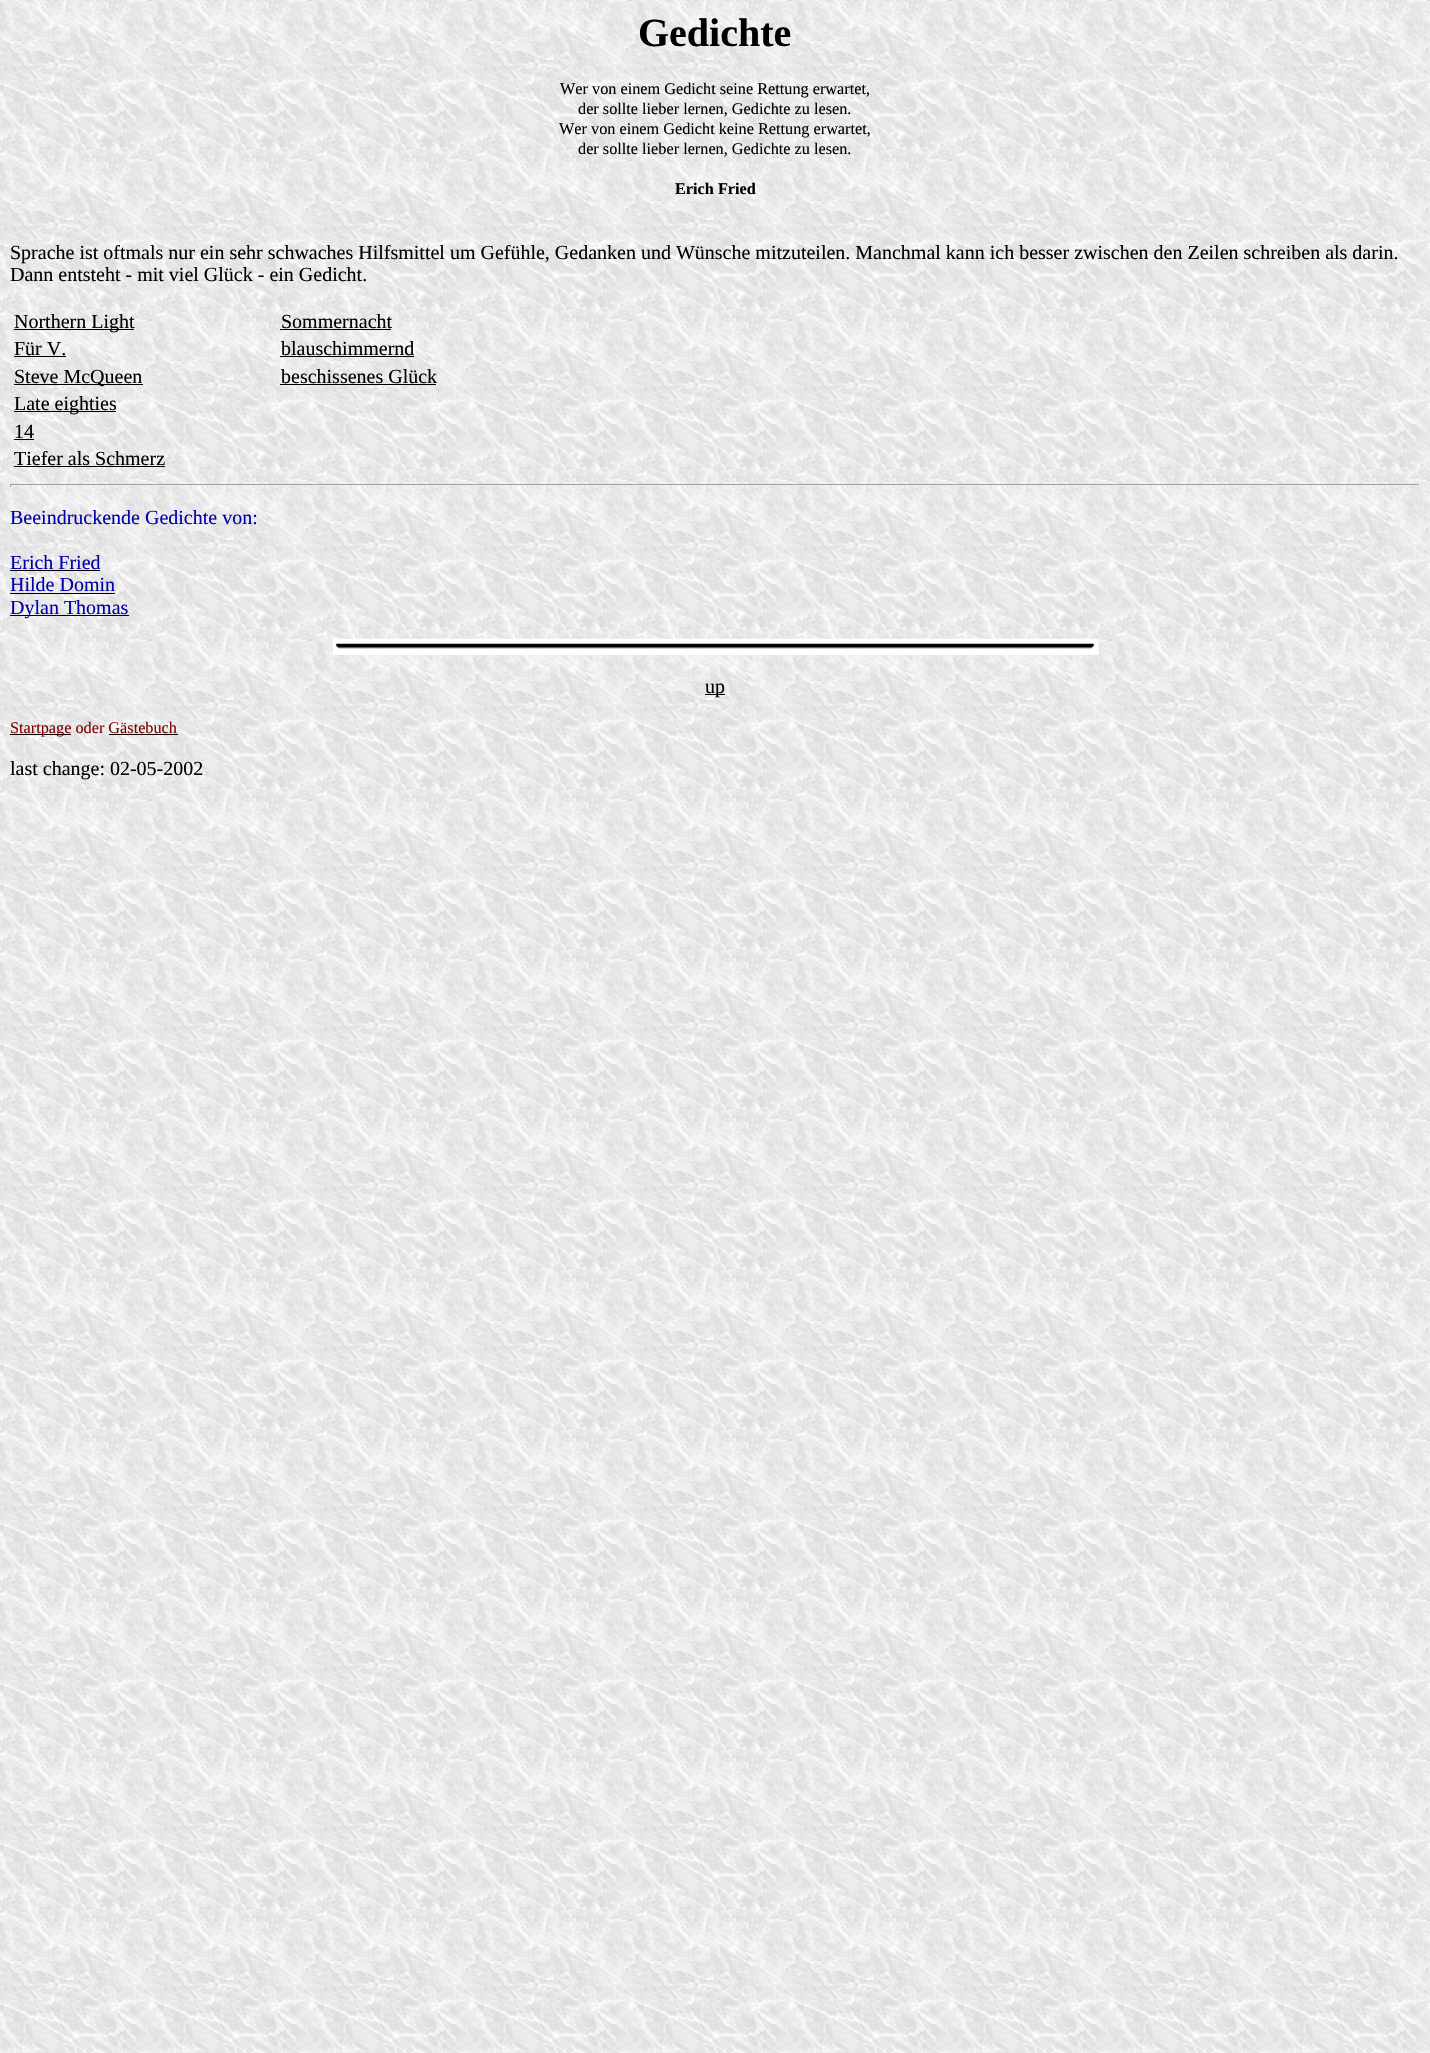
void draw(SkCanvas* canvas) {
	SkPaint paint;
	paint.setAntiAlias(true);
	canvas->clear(0xffffffff);
	canvas->drawImageRect(SkImages::DeferredFromEncodedData(SkData::MakeFromFileName("img1.png")), SkRect::MakeXYWH(0, 0, 1430, 2053), SkSamplingOptions());
	SkFont f1(fontMgr->matchFamilyStyle("Liberation Serif", SkFontStyle::Bold()), 40);
	f1.setSubpixel(true);
	paint.setColor(0xff000000);
	canvas->drawString("Gedichte", 638, 46, f1, paint);
	SkFont f2(fontMgr->matchFamilyStyle("Liberation Serif", SkFontStyle::Normal()), 16.25);
	f2.setSubpixel(true);
	canvas->drawString("Wer von einem Gedicht seine Rettung erwartet,", 560, 94, f2, paint);
	canvas->drawString("der sollte lieber lernen, Gedichte zu lesen.", 578, 114, f2, paint);
	canvas->drawString("Wer von einem Gedicht keine Rettung erwartet,", 559, 134, f2, paint);
	canvas->drawString("der sollte lieber lernen, Gedichte zu lesen.", 578, 154, f2, paint);
	SkFont f3(fontMgr->matchFamilyStyle("Liberation Serif", SkFontStyle::Bold()), 16.25);
	f3.setSubpixel(true);
	canvas->drawString("Erich Fried", 675, 194, f3, paint);
	SkFont f4(fontMgr->matchFamilyStyle("Liberation Serif", SkFontStyle::Normal()), 20);
	f4.setSubpixel(true);
	canvas->drawString("Sprache ist oftmals nur ein sehr schwaches Hilfsmittel um Gefühle, Gedanken und Wünsche mitzuteilen. Manchmal kann ich besser zwischen den Zeilen schreiben als darin.", 10, 259, f4, paint);
	canvas->drawString("Dann entsteht - mit viel Glück - ein Gedicht.", 10, 281, f4, paint);
	canvas->drawRect(SkRect::MakeXYWH(14, 329, 120, 1), paint);
	canvas->drawString("Northern Light", 14, 328, f4, paint);
	canvas->drawString("Sommernacht", 281, 328, f4, paint);
	canvas->drawRect(SkRect::MakeXYWH(280, 329, 111, 1), paint);
	canvas->drawString("Für V.", 14, 355, f4, paint);
	canvas->drawRect(SkRect::MakeXYWH(14, 356, 52, 1), paint);
	canvas->drawString("blauschimmernd", 281, 355, f4, paint);
	canvas->drawRect(SkRect::MakeXYWH(280, 356, 134, 1), paint);
	canvas->drawRect(SkRect::MakeXYWH(14, 384, 129, 1), paint);
	canvas->drawString("Steve McQueen", 14, 383, f4, paint);
	canvas->drawString("beschissenes Glück", 281, 383, f4, paint);
	canvas->drawRect(SkRect::MakeXYWH(280, 384, 156, 1), paint);
	canvas->drawRect(SkRect::MakeXYWH(14, 411, 102, 1), paint);
	canvas->drawString("Late eighties", 14, 410, f4, paint);
	canvas->drawString("14", 14, 438, f4, paint);
	canvas->drawRect(SkRect::MakeXYWH(14, 439, 20, 1), paint);
	canvas->drawString("Tiefer als Schmerz", 14, 465, f4, paint);
	canvas->drawRect(SkRect::MakeXYWH(14, 466, 151, 1), paint);
	paint.setColor(0xff9f9f9f);
	canvas->drawRect(SkRect::MakeXYWH(10, 484, 1410, 1), paint);
	paint.setColor(0xffeeeeee);
	canvas->drawRect(SkRect::MakeXYWH(1419, 484, 1, 3), paint);
	canvas->drawRect(SkRect::MakeXYWH(10, 485, 1410, 1), paint);
	paint.setColor(0xff9f9f9f);
	canvas->drawRect(SkRect::MakeXYWH(10, 484, 1, 3), paint);
	paint.setColor(0xff0000aa);
	canvas->drawString("Beeindruckende Gedichte von:", 10, 524, f4, paint);
	canvas->drawString("Erich Fried", 10, 569, f4, paint);
	paint.setColor(0xff000000);
	canvas->drawRect(SkRect::MakeXYWH(10, 570, 90, 1), paint);
	paint.setColor(0xff0000aa);
	canvas->drawString("Hilde Domin", 10, 591, f4, paint);
	paint.setColor(0xff000000);
	canvas->drawRect(SkRect::MakeXYWH(10, 593, 105, 1), paint);
	canvas->drawRect(SkRect::MakeXYWH(10, 615, 119, 1), paint);
	paint.setColor(0xff0000aa);
	canvas->drawString("Dylan Thomas", 10, 614, f4, paint);
	canvas->drawImageRect(SkImages::DeferredFromEncodedData(SkData::MakeFromFileName("img2.png")), SkRect::MakeXYWH(332, 638, 767, 17), SkSamplingOptions());
	paint.setColor(0xff000000);
	canvas->drawRect(SkRect::MakeXYWH(705, 694, 20, 1), paint);
	canvas->drawString("up", 705, 693, f4, paint);
	canvas->drawRect(SkRect::MakeXYWH(10, 734, 61, 1), paint);
	paint.setColor(0xff800000);
	canvas->drawString("Startpage oder Gästebuch", 10, 733, f2, paint);
	paint.setColor(0xff000000);
	canvas->drawRect(SkRect::MakeXYWH(109, 734, 69, 1), paint);
	canvas->drawString("last change: 02-05-2002", 10, 775, f4, paint);
}
